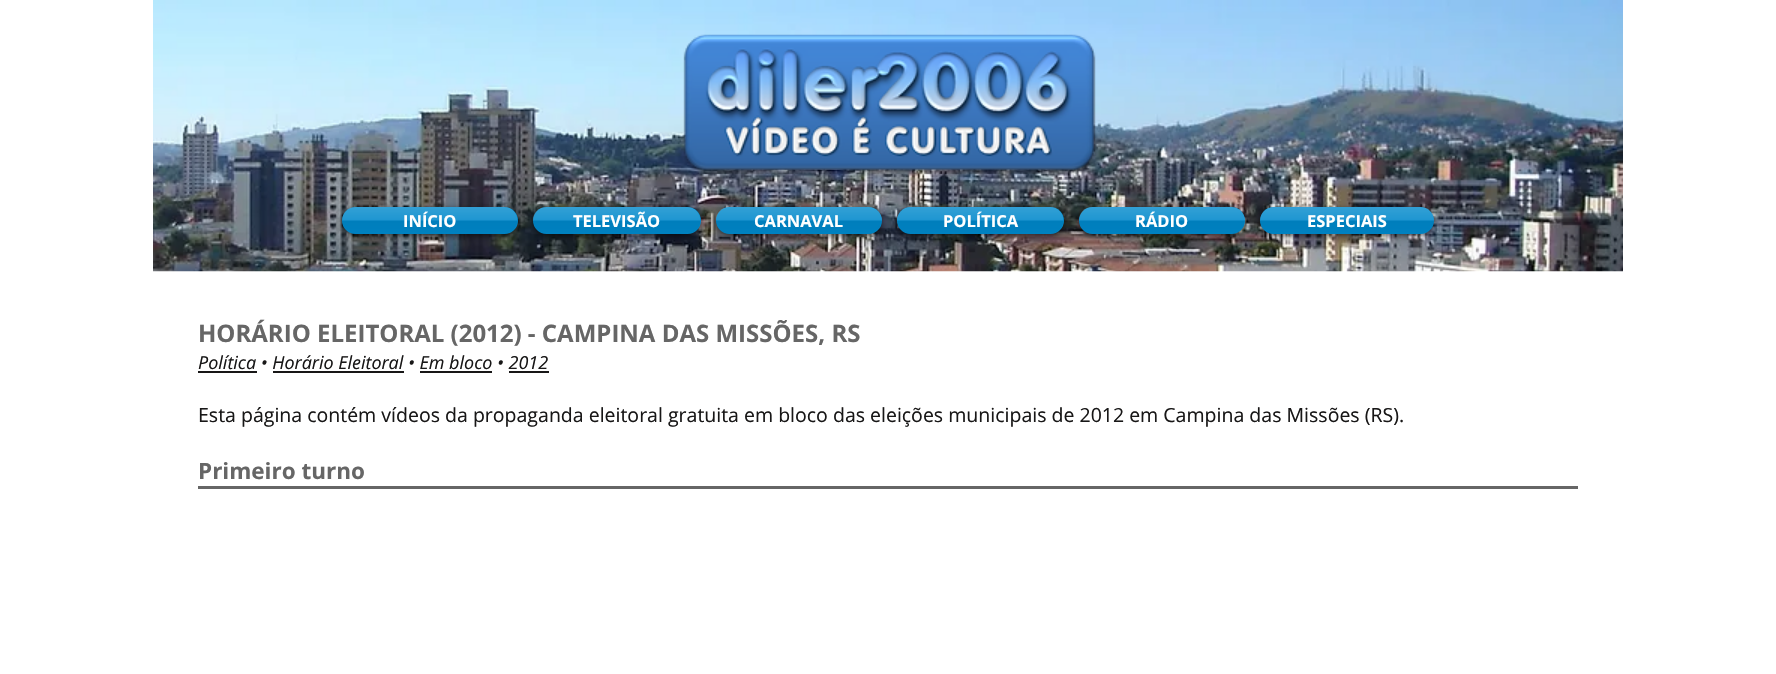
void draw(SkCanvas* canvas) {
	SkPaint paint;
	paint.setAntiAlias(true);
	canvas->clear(0xffffffff);
	canvas->drawImageRect(SkImages::DeferredFromEncodedData(SkData::MakeFromFileName("img1.png")), SkRect::MakeXYWH(153, 0, 1470, 272), SkSamplingOptions());
	canvas->drawImageRect(SkImages::DeferredFromEncodedData(SkData::MakeFromFileName("img2.png")), SkRect::MakeXYWH(683, 34, 413, 140), SkSamplingOptions());
	paint.setColor(0x99000000);
	paint.setMaskFilter(SkMaskFilter::MakeBlur(kNormal_SkBlurStyle, 3));
	canvas->drawRoundRect(SkRect::MakeXYWH(342, 209, 176, 27), 13.5, 13.5, paint);
	paint.setMaskFilter(nullptr);
	paint.setColor(0xff0088cb);
	canvas->drawRoundRect(SkRect::MakeXYWH(342, 207, 176, 27), 13.5, 13.5, paint);
	canvas->drawImageRect(SkImages::DeferredFromEncodedData(SkData::MakeFromFileName("img3.png")), SkRect::MakeXYWH(342, 207, 176, 27), SkSamplingOptions());
	SkFont f1(fontMgr->matchFamilyStyle("Open Sans", SkFontStyle::Bold()), 16.5);
	f1.setSubpixel(true);
	paint.setColor(0xffffffff);
	canvas->drawString("INÍCIO", 403, 227, f1, paint);
	paint.setColor(0x99000000);
	paint.setMaskFilter(SkMaskFilter::MakeBlur(kNormal_SkBlurStyle, 3));
	canvas->drawRoundRect(SkRect::MakeXYWH(533, 209, 168, 27), 13.5, 13.5, paint);
	paint.setMaskFilter(nullptr);
	paint.setColor(0xff0088cb);
	canvas->drawRoundRect(SkRect::MakeXYWH(533, 207, 168, 27), 13.5, 13.5, paint);
	canvas->drawImageRect(SkImages::DeferredFromEncodedData(SkData::MakeFromFileName("img4.png")), SkRect::MakeXYWH(532, 207, 169, 27), SkSamplingOptions());
	paint.setColor(0xffffffff);
	canvas->drawString("TELEVISÃO", 573, 227, f1, paint);
	paint.setColor(0x99000000);
	paint.setMaskFilter(SkMaskFilter::MakeBlur(kNormal_SkBlurStyle, 3));
	canvas->drawRoundRect(SkRect::MakeXYWH(716, 209, 166, 27), 13.5, 13.5, paint);
	paint.setMaskFilter(nullptr);
	paint.setColor(0xff0088cb);
	canvas->drawRoundRect(SkRect::MakeXYWH(716, 207, 166, 27), 13.5, 13.5, paint);
	canvas->drawImageRect(SkImages::DeferredFromEncodedData(SkData::MakeFromFileName("img5.png")), SkRect::MakeXYWH(715, 207, 167, 27), SkSamplingOptions());
	paint.setColor(0xffffffff);
	canvas->drawString("CARNAVAL", 754, 227, f1, paint);
	paint.setColor(0x99000000);
	paint.setMaskFilter(SkMaskFilter::MakeBlur(kNormal_SkBlurStyle, 3));
	canvas->drawRoundRect(SkRect::MakeXYWH(897, 209, 167, 27), 13.5, 13.5, paint);
	paint.setMaskFilter(nullptr);
	paint.setColor(0xff0088cb);
	canvas->drawRoundRect(SkRect::MakeXYWH(897, 207, 167, 27), 13.5, 13.5, paint);
	canvas->drawImageRect(SkImages::DeferredFromEncodedData(SkData::MakeFromFileName("img6.png")), SkRect::MakeXYWH(897, 207, 167, 27), SkSamplingOptions());
	paint.setColor(0xffffffff);
	canvas->drawString("POLÍTICA", 943, 227, f1, paint);
	paint.setColor(0x99000000);
	paint.setMaskFilter(SkMaskFilter::MakeBlur(kNormal_SkBlurStyle, 3));
	canvas->drawRoundRect(SkRect::MakeXYWH(1079, 209, 166, 27), 13.5, 13.5, paint);
	paint.setMaskFilter(nullptr);
	paint.setColor(0xff0088cb);
	canvas->drawRoundRect(SkRect::MakeXYWH(1079, 207, 166, 27), 13.5, 13.5, paint);
	canvas->drawImageRect(SkImages::DeferredFromEncodedData(SkData::MakeFromFileName("img7.png")), SkRect::MakeXYWH(1078, 207, 167, 27), SkSamplingOptions());
	paint.setColor(0xffffffff);
	canvas->drawString("RÁDIO", 1135, 227, f1, paint);
	paint.setColor(0x99000000);
	paint.setMaskFilter(SkMaskFilter::MakeBlur(kNormal_SkBlurStyle, 3));
	canvas->drawRoundRect(SkRect::MakeXYWH(1260, 209, 174, 27), 13.5, 13.5, paint);
	paint.setMaskFilter(nullptr);
	paint.setColor(0xff0088cb);
	canvas->drawRoundRect(SkRect::MakeXYWH(1260, 207, 174, 27), 13.5, 13.5, paint);
	canvas->drawImageRect(SkImages::DeferredFromEncodedData(SkData::MakeFromFileName("img8.png")), SkRect::MakeXYWH(1260, 207, 174, 27), SkSamplingOptions());
	paint.setColor(0xffffffff);
	canvas->drawString("ESPECIAIS", 1307, 227, f1, paint);
	SkFont f2(fontMgr->matchFamilyStyle("Open Sans", SkFontStyle::Bold()), 24);
	f2.setSubpixel(true);
	paint.setColor(0xff666666);
	canvas->drawString("HORÁRIO ELEITORAL (2012) - CAMPINA DAS MISSÕES, RS", 198, 342, f2, paint);
	SkFont f3(fontMgr->matchFamilyStyle("Open Sans", SkFontStyle::Italic()), 18);
	f3.setSubpixel(true);
	paint.setColor(0xff181717);
	canvas->drawString("Política • Horário Eleitoral • Em bloco • 2012", 198, 369, f3, paint);
	canvas->drawRect(SkRect::MakeXYWH(198, 371, 59, 2), paint);
	canvas->drawRect(SkRect::MakeXYWH(273, 371, 131, 2), paint);
	canvas->drawRect(SkRect::MakeXYWH(420, 371, 72, 2), paint);
	canvas->drawRect(SkRect::MakeXYWH(509, 371, 40, 2), paint);
	SkFont f4(fontMgr->matchFamilyStyle("Open Sans", SkFontStyle::Normal()), 19.5);
	f4.setSubpixel(true);
	canvas->drawString("Esta página contém vídeos da propaganda eleitoral gratuita em bloco das eleições municipais de 2012 em Campina das Missões (RS).", 198, 422, f4, paint);
	SkFont f5(fontMgr->matchFamilyStyle("Open Sans", SkFontStyle::Bold()), 22.5);
	f5.setSubpixel(true);
	paint.setColor(0xff666666);
	canvas->drawString("Primeiro turno", 198, 479, f5, paint);
	canvas->drawRect(SkRect::MakeXYWH(198, 486, 1380, 3), paint);
}
